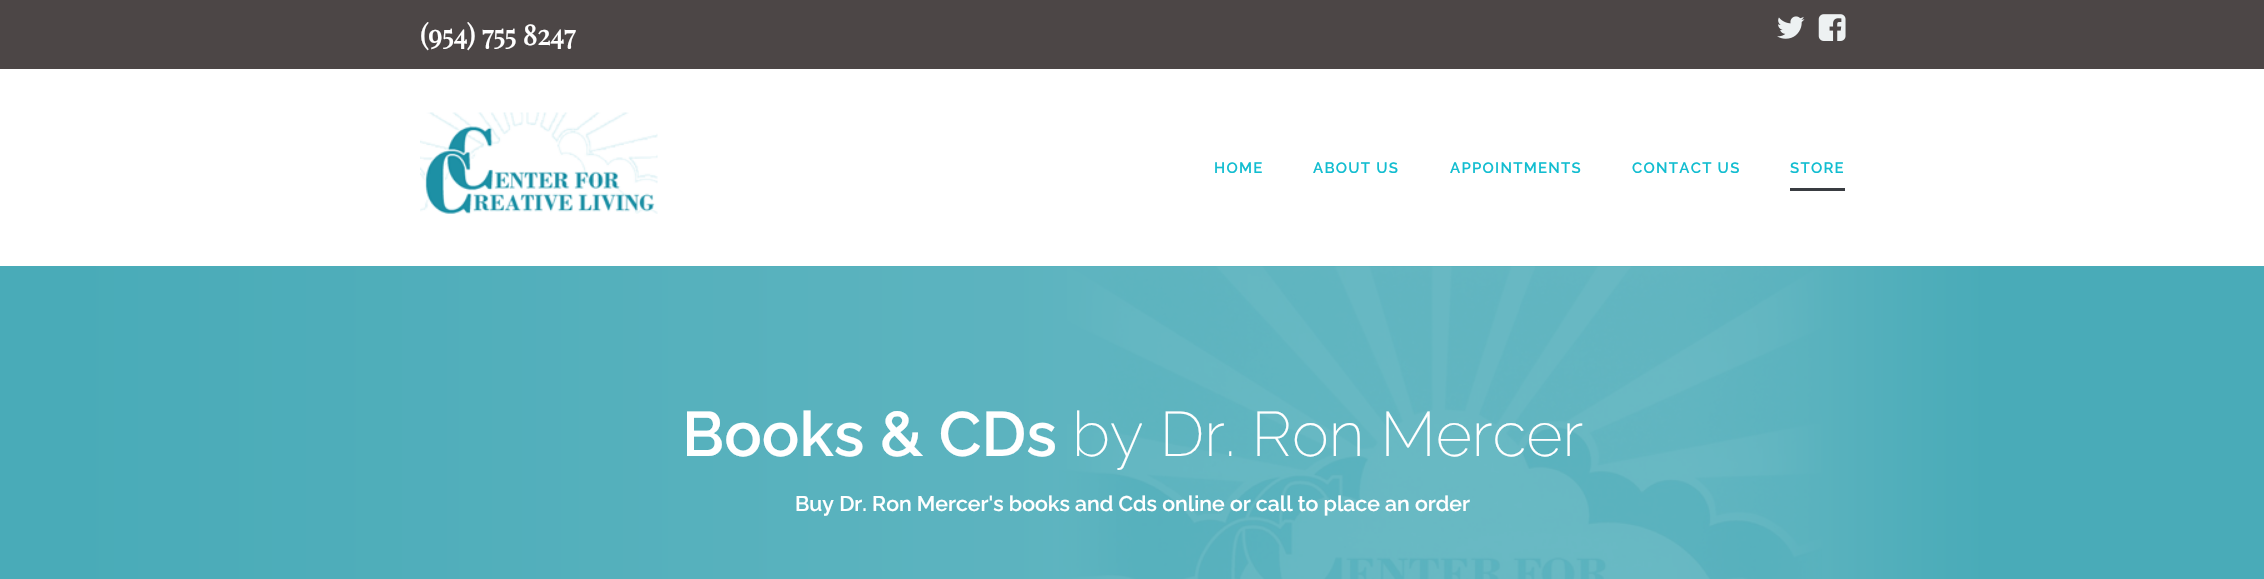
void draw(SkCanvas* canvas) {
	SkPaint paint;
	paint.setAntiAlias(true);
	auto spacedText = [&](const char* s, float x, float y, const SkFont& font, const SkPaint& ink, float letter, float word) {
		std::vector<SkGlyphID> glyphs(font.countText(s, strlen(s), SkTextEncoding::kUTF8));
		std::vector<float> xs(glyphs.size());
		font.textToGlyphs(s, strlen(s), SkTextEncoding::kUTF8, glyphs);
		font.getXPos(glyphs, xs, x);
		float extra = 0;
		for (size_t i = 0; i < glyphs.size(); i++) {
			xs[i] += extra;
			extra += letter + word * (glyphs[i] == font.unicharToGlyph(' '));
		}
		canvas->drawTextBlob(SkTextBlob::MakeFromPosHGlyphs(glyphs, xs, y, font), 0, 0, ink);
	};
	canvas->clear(0xffffffff);
	paint.setColor(0xff4c4646);
	canvas->drawRect(SkRect::MakeXYWH(0, 0, 2264, 69), paint);
	SkFont f1(fontMgr->matchFamilyStyle("Playfair Display", SkFontStyle::Bold()), 27.5);
	f1.setSubpixel(true);
	paint.setColor(0xffffffff);
	canvas->drawString("(954) 755 8247", 420, 45, f1, paint);
	canvas->drawImageRect(SkImages::DeferredFromEncodedData(SkData::MakeFromFileName("img1.png")), SkRect::MakeXYWH(1777, 16, 28, 23), SkSamplingOptions());
	canvas->drawImageRect(SkImages::DeferredFromEncodedData(SkData::MakeFromFileName("img2.png")), SkRect::MakeXYWH(1818, 14, 28, 27), SkSamplingOptions());
	canvas->drawImageRect(SkImages::DeferredFromEncodedData(SkData::MakeFromFileName("img3.png")), SkRect::MakeXYWH(420, 112, 238, 102), SkSamplingOptions());
	SkFont f2(fontMgr->matchFamilyStyle("Raleway", SkFontStyle(600, SkFontStyle::kNormal_Width, SkFontStyle::kUpright_Slant)), 15);
	f2.setSubpixel(true);
	paint.setColor(0xff12bdd0);
	spacedText("HOME", 1214, 173, f2, paint, 1.25, 0);
	spacedText("ABOUT US", 1313, 173, f2, paint, 1.25, 0);
	spacedText("APPOINTMENTS", 1450, 173, f2, paint, 1.25, 0);
	spacedText("CONTACT US", 1632, 173, f2, paint, 1.25, 0);
	spacedText("STORE", 1790, 173, f2, paint, 1.25, 0);
	paint.setColor(0xff393c41);
	canvas->drawRect(SkRect::MakeXYWH(1790, 188, 55, 3), paint);
	paint.setColor(0xff49abb8);
	canvas->drawRect(SkRect::MakeXYWH(0, 266, 2264, 313), paint);
	canvas->drawImageRect(SkImages::DeferredFromEncodedData(SkData::MakeFromFileName("img4.png")), SkRect::MakeXYWH(96, 266, 1883, 313), SkSamplingOptions());
	SkFont f3(fontMgr->matchFamilyStyle("Raleway", SkFontStyle(600, SkFontStyle::kNormal_Width, SkFontStyle::kUpright_Slant)), 62.5);
	f3.setSubpixel(true);
	paint.setColor(0xffffffff);
	canvas->drawString("Books & CDs", 682, 456, f3, paint);
	SkFont f4(fontMgr->matchFamilyStyle("Raleway", SkFontStyle(200, SkFontStyle::kNormal_Width, SkFontStyle::kUpright_Slant)), 62.5);
	f4.setSubpixel(true);
	canvas->drawString("by Dr. Ron Mercer", 1072, 456, f4, paint);
	SkFont f5(fontMgr->matchFamilyStyle("Raleway", SkFontStyle(600, SkFontStyle::kNormal_Width, SkFontStyle::kUpright_Slant)), 21.25);
	f5.setSubpixel(true);
	canvas->drawString("Buy Dr. Ron Mercer's books and Cds online or call to place an order", 795, 511, f5, paint);
}
